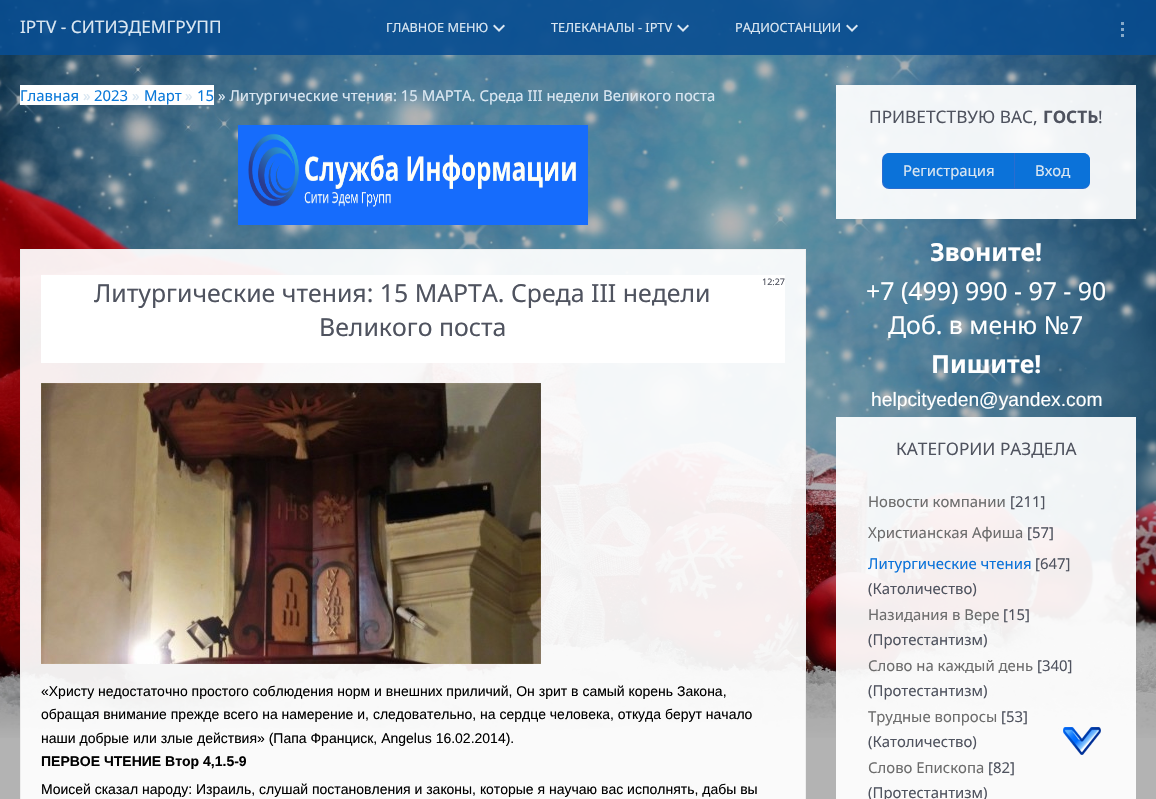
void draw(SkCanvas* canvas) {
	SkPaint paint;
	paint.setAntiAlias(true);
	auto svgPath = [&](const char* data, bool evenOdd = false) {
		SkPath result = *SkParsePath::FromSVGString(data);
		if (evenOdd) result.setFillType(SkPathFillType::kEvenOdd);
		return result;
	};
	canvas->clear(0xffb3b3b3);
	canvas->drawImageRect(SkImages::DeferredFromEncodedData(SkData::MakeFromFileName("img1.png")), SkRect::MakeXYWH(0, 0, 1156, 738), SkSamplingOptions());
	paint.setColor(0xed074a8c);
	canvas->drawRect(SkRect::MakeXYWH(0, 0, 1156, 55), paint);
	SkFont f1(fontMgr->matchFamilyStyle("Noto Sans", SkFontStyle::Normal()), 17.25);
	f1.setSubpixel(true);
	paint.setColor(0xffdae7f2);
	canvas->drawString("IPTV - СИТИЭДЕМГРУПП", 20, 33, f1, paint);
	SkFont f2(fontMgr->matchFamilyStyle("Noto Sans", SkFontStyle::Normal()), 12.75);
	f2.setSubpixel(true);
	canvas->drawString("ГЛАВНОЕ МЕНЮ", 386, 32, f2, paint);
	canvas->drawImageRect(SkImages::DeferredFromEncodedData(SkData::MakeFromFileName("img2.png")), SkRect::MakeXYWH(493, 24, 12, 8), SkSamplingOptions());
	canvas->drawString("ТЕЛЕКАНАЛЫ - IPTV", 551, 32, f2, paint);
	canvas->drawImageRect(SkImages::DeferredFromEncodedData(SkData::MakeFromFileName("img3.png")), SkRect::MakeXYWH(677, 24, 12, 8), SkSamplingOptions());
	canvas->drawString("РАДИОСТАНЦИИ", 735, 32, f2, paint);
	canvas->drawImageRect(SkImages::DeferredFromEncodedData(SkData::MakeFromFileName("img4.png")), SkRect::MakeXYWH(846, 24, 12, 8), SkSamplingOptions());
	paint.setColor(0xff86a9c9);
	canvas->drawRect(SkRect::MakeXYWH(1121, 22, 3, 3), paint);
	canvas->drawRect(SkRect::MakeXYWH(1121, 28, 3, 3), paint);
	canvas->drawRect(SkRect::MakeXYWH(1121, 34, 3, 3), paint);
	paint.setColor(0xffffffff);
	canvas->drawRect(SkRect::MakeXYWH(20, 85, 194, 20), paint);
	SkFont f3(fontMgr->matchFamilyStyle("Noto Sans", SkFontStyle::Normal()), 14.9);
	f3.setSubpixel(true);
	paint.setColor(0xff0b79d9);
	canvas->drawString("Главная", 20, 101, f3, paint);
	paint.setColor(0xffdae7f2);
	canvas->drawString("»", 83, 101, f3, paint);
	paint.setColor(0xff0b79d9);
	canvas->drawString("2023", 94, 101, f3, paint);
	paint.setColor(0xffdae7f2);
	canvas->drawString("»", 132, 101, f3, paint);
	paint.setColor(0xff0b79d9);
	canvas->drawString("Март", 144, 101, f3, paint);
	paint.setColor(0xffdae7f2);
	canvas->drawString("»", 185, 101, f3, paint);
	paint.setColor(0xff0b79d9);
	canvas->drawString("15", 197, 101, f3, paint);
	paint.setColor(0xffdae7f2);
	canvas->drawString("» Литургические чтения: 15 МАРТА. Среда III недели Великого поста", 218, 101, f3, paint);
	canvas->drawImageRect(SkImages::DeferredFromEncodedData(SkData::MakeFromFileName("img5.png")), SkRect::MakeXYWH(238, 125, 350, 100), SkSamplingOptions());
	paint.setColor(0xedffffff);
	canvas->drawRect(SkRect::MakeXYWH(20.5, 249.5, 785, 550), paint);
	paint.setStroke(true);
	paint.setStrokeWidth(1);
	paint.setColor(0xffeeeeee);
	canvas->drawRect(SkRect::MakeXYWH(20.5, 249.5, 785, 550), paint);
	paint.setStroke(false);
	paint.setColor(0xffffffff);
	canvas->drawRect(SkRect::MakeXYWH(41, 275, 744, 88), paint);
	SkFont f4(fontMgr->matchFamilyStyle("Noto Sans", SkFontStyle::Normal()), 9);
	f4.setSubpixel(true);
	paint.setColor(0xff4f535f);
	canvas->drawString("12:27", 762, 285, f4, paint);
	SkFont f5(fontMgr->matchFamilyStyle("Noto Sans", SkFontStyle::Normal()), 24.85);
	f5.setSubpixel(true);
	canvas->drawString("Литургические чтения: 15 МАРТА. Среда III недели", 94, 302, f5, paint);
	canvas->drawString("Великого поста", 319, 336, f5, paint);
	canvas->drawImageRect(SkImages::DeferredFromEncodedData(SkData::MakeFromFileName("img6.png")), SkRect::MakeXYWH(41, 383, 500, 281), SkSamplingOptions());
	SkFont f6(fontMgr->matchFamilyStyle("Liberation Sans", SkFontStyle::Normal()), 14);
	f6.setSubpixel(true);
	paint.setColor(0xff000000);
	canvas->drawString("«Христу недостаточно простого соблюдения норм и внешних приличий, Он зрит в самый корень Закона,", 41, 696, f6, paint);
	canvas->drawString("обращая внимание прежде всего на намерение и, следовательно, на сердце человека, откуда берут начало", 41, 719, f6, paint);
	canvas->drawString("наши добрые или злые действия» (Папа Франциск, Angelus 16.02.2014).", 41, 743, f6, paint);
	SkFont f7(fontMgr->matchFamilyStyle("Liberation Sans", SkFontStyle::Bold()), 14);
	f7.setSubpixel(true);
	canvas->drawString("ПЕРВОЕ ЧТЕНИЕ Втор 4,1.5-9", 41, 766, f7, paint);
	canvas->drawString("Моисей сказал народу: Израиль, слушай постановления и законы, которые я научаю вас исполнять, дабы вы", 41, 794, f6, paint);
	paint.setColor(0xedffffff);
	canvas->drawRect(SkRect::MakeXYWH(836, 85, 300, 134), paint);
	paint.setColor(0xff4f535f);
	canvas->drawString("ПРИВЕТСТВУЮ ВАС,", 869, 123, f1, paint);
	SkFont f8(fontMgr->matchFamilyStyle("Noto Sans", SkFontStyle::Bold()), 17.25);
	f8.setSubpixel(true);
	canvas->drawString("ГОСТЬ", 1043, 123, f8, paint);
	canvas->drawString("!", 1098, 123, f1, paint);
	paint.setColor(0xff2a6dd0);
	canvas->drawRoundRect(SkRect::MakeXYWH(882, 153, 208, 36), 7, 7, paint);
	paint.setColor(0xff0b72d9);
	canvas->drawPath(svgPath("M890 153H1014V188H890C886 188 883 185 883 181V160C883 156 886 153 890 153Z"), paint);
	paint.setColor(0xffdae7f2);
	canvas->drawString("Регистрация", 903, 176, f3, paint);
	paint.setColor(0xff0b72d9);
	canvas->drawPath(svgPath("M1015 153H1083C1087 153 1090 156 1090 160V181C1090 185 1087 188 1083 188H1015Z"), paint);
	paint.setColor(0xffdae7f2);
	canvas->drawString("Вход", 1035, 176, f3, paint);
	SkFont f9(fontMgr->matchFamilyStyle("Noto Sans", SkFontStyle::Bold()), 24.85);
	f9.setSubpixel(true);
	paint.setColor(0xffffffff);
	canvas->drawString("Звоните!", 930, 261, f9, paint);
	canvas->drawString("+7 (499) 990 - 97 - 90", 866, 300, f5, paint);
	canvas->drawString("Доб. в меню №7", 888, 334, f5, paint);
	canvas->drawString("Пишите!", 931, 373, f9, paint);
	SkFont f10(fontMgr->matchFamilyStyle("Liberation Sans", SkFontStyle::Normal()), 19.25);
	f10.setSubpixel(true);
	canvas->drawString("helpcityeden@yandex.com", 871, 406, f10, paint);
	paint.setColor(0xedffffff);
	canvas->drawRect(SkRect::MakeXYWH(836, 417, 300, 382), paint);
	paint.setColor(0xff4f535f);
	canvas->drawString("КАТЕГОРИИ РАЗДЕЛА", 896, 455, f1, paint);
	paint.setColor(0xff6c6c6c);
	canvas->drawString("Новости компании", 868, 507, f3, paint);
	paint.setColor(0xff4f535f);
	canvas->drawString("[211]", 1010, 507, f3, paint);
	paint.setColor(0xff6c6c6c);
	canvas->drawString("Христианская Афиша", 868, 538, f3, paint);
	paint.setColor(0xff4f535f);
	canvas->drawString("[57]", 1027, 538, f3, paint);
	paint.setColor(0xff0b72d9);
	canvas->drawString("Литургические чтения", 868, 569, f3, paint);
	paint.setColor(0xff4f535f);
	canvas->drawString("[647]", 1035, 569, f3, paint);
	canvas->drawString("(Католичество)", 868, 594, f3, paint);
	paint.setColor(0xff6c6c6c);
	canvas->drawString("Назидания в Вере", 868, 620, f3, paint);
	paint.setColor(0xff4f535f);
	canvas->drawString("[15]", 1003, 620, f3, paint);
	canvas->drawString("(Протестантизм)", 868, 645, f3, paint);
	paint.setColor(0xff6c6c6c);
	canvas->drawString("Слово на каждый день", 868, 671, f3, paint);
	paint.setColor(0xff4f535f);
	canvas->drawString("[340]", 1037, 671, f3, paint);
	canvas->drawString("(Протестантизм)", 868, 696, f3, paint);
	paint.setColor(0xff6c6c6c);
	canvas->drawString("Трудные вопросы", 868, 722, f3, paint);
	paint.setColor(0xff4f535f);
	canvas->drawString("[53]", 1001, 722, f3, paint);
	canvas->drawString("(Католичество)", 868, 747, f3, paint);
	paint.setColor(0xff6c6c6c);
	canvas->drawString("Слово Епископа", 868, 773, f3, paint);
	paint.setColor(0xff4f535f);
	canvas->drawString("[82]", 988, 773, f3, paint);
	canvas->drawString("(Протестантизм)", 868, 798, f3, paint);
	canvas->drawImageRect(SkImages::DeferredFromEncodedData(SkData::MakeFromFileName("img7.png")), SkRect::MakeXYWH(1063, 727, 38, 28), SkSamplingOptions());
}
